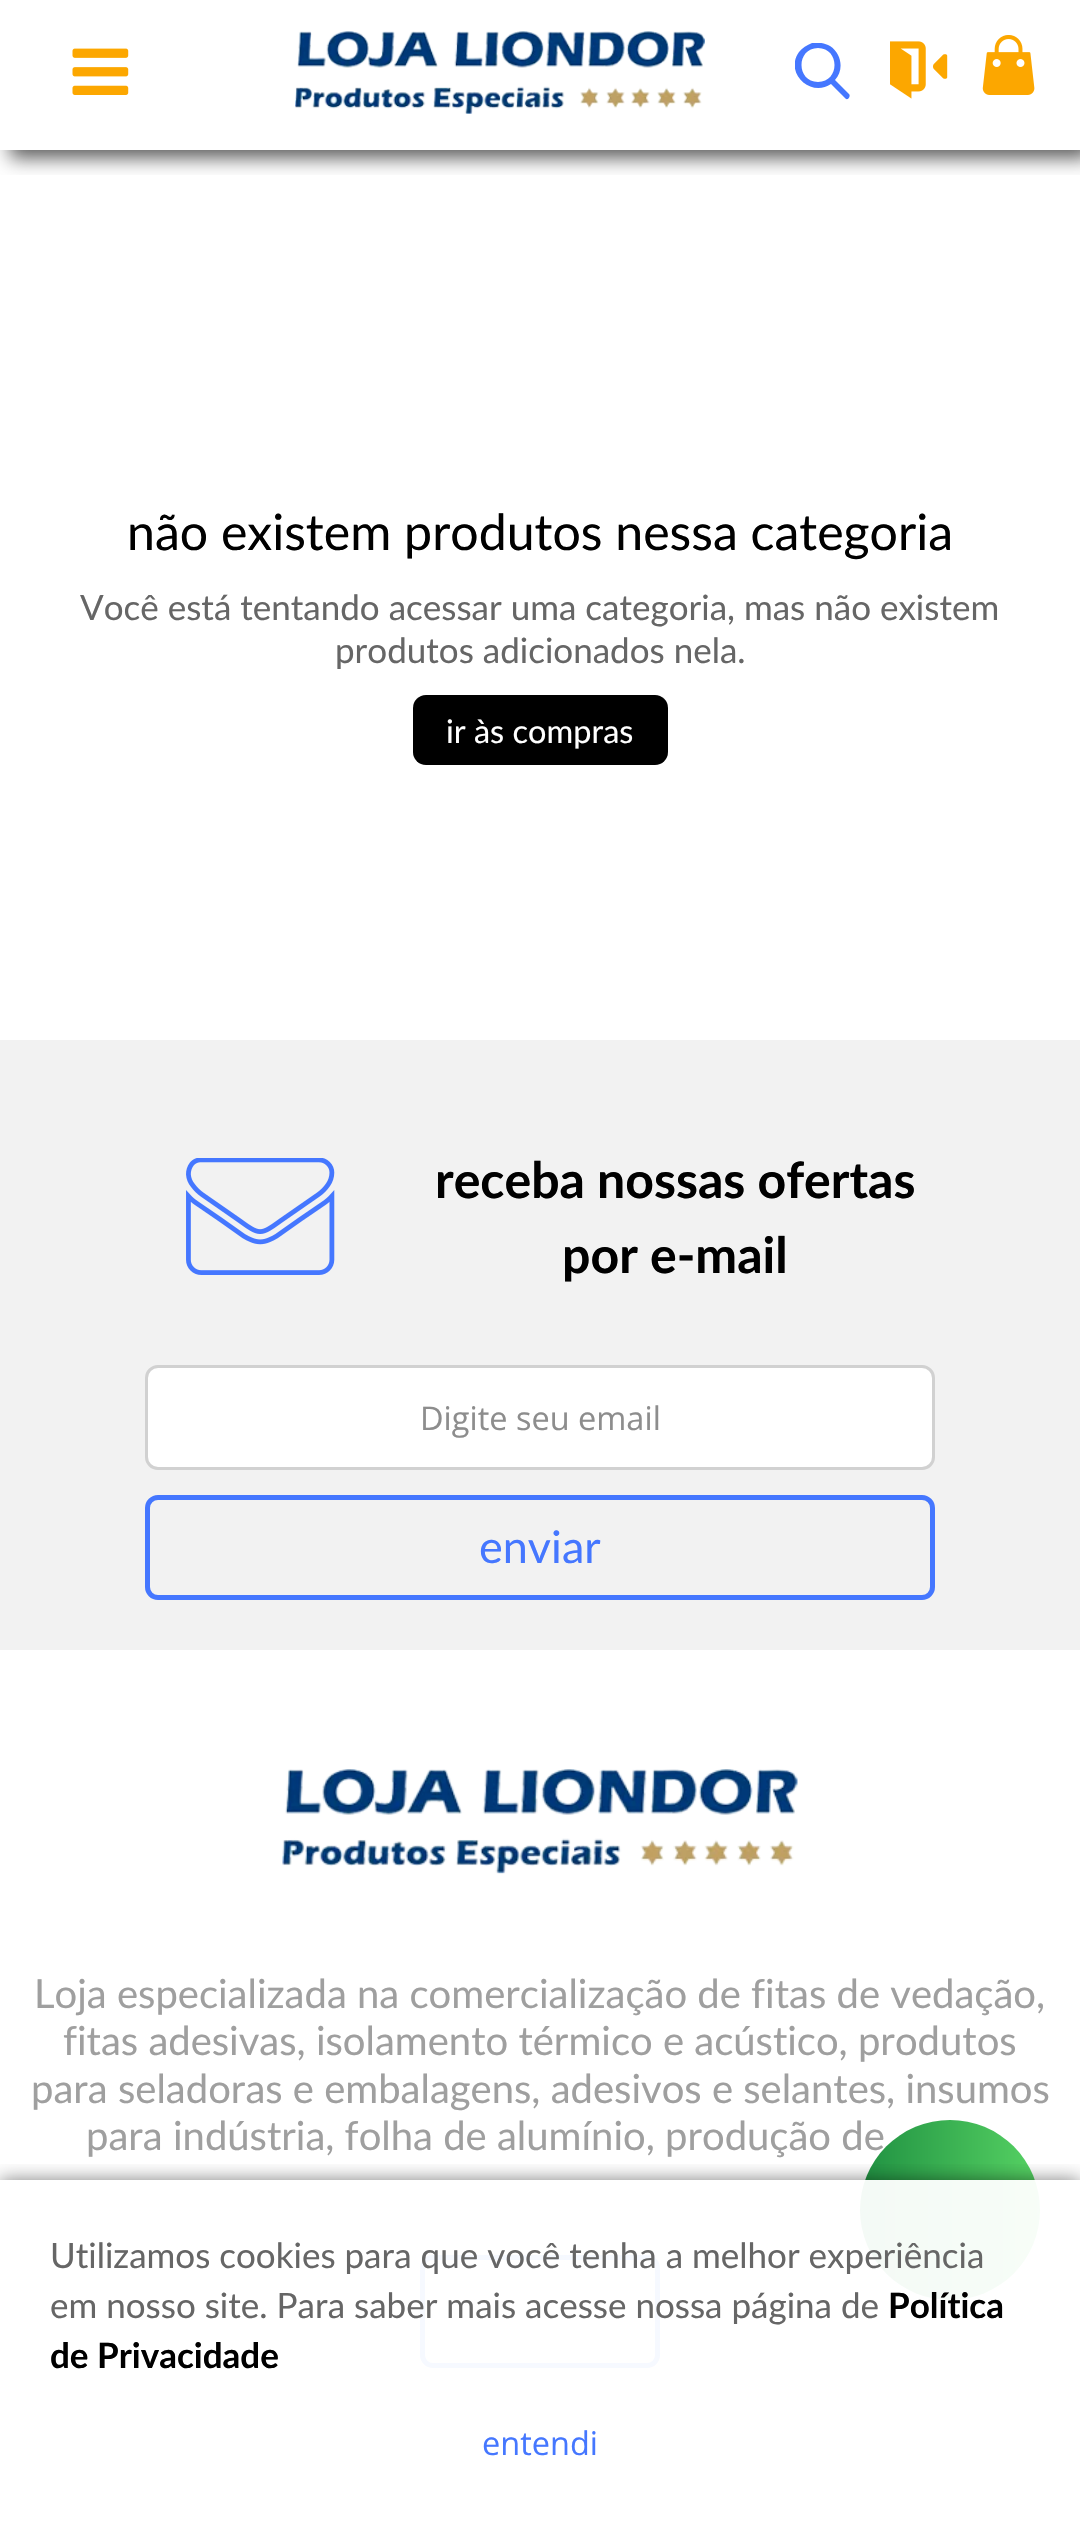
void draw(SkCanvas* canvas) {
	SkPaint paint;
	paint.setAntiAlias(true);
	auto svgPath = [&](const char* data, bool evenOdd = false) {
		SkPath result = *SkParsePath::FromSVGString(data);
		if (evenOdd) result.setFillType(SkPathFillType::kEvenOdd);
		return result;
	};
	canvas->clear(0xffffffff);
	canvas->save();
	canvas->clipRect(SkRect::MakeXYWH(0, 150, 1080, 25));
	paint.setColor(0xa3000000);
	paint.setMaskFilter(SkMaskFilter::MakeBlur(kNormal_SkBlurStyle, 9));
	canvas->drawRect(SkRect::MakeXYWH(10, 8, 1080, 150), paint);
	paint.setMaskFilter(nullptr);
	canvas->restore();
	canvas->save();
	canvas->clipRect(SkRect::MakeXYWH(795, 43, 55, 57));
	paint.setColor(0xff4577ff);
	canvas->drawPath(svgPath("M849 94L835 80C844 70 842 54 830 46C825 43 818 42 812 43C807 45 802 48 799 52C784 73 811 98 831 84L846 99C848 100 851 96 849 94ZM818 48C840 48 840 82 818 82C796 82 796 48 818 48Z"), paint);
	canvas->restore();
	canvas->drawImageRect(SkImages::DeferredFromEncodedData(SkData::MakeFromFileName("img1.png")), SkRect::MakeXYWH(890, 41, 58, 58), SkSamplingOptions());
	canvas->drawImageRect(SkImages::DeferredFromEncodedData(SkData::MakeFromFileName("img2.png")), SkRect::MakeXYWH(982, 35, 53, 60), SkSamplingOptions());
	canvas->drawImageRect(SkImages::DeferredFromEncodedData(SkData::MakeFromFileName("img3.png")), SkRect::MakeXYWH(72, 48, 57, 47), SkSamplingOptions());
	canvas->drawImageRect(SkImages::DeferredFromEncodedData(SkData::MakeFromFileName("img4.png")), SkRect::MakeXYWH(295, 31, 410, 83), SkSamplingOptions());
	SkFont f1(fontMgr->matchFamilyStyle("Lato", SkFontStyle::Normal()), 50);
	f1.setSubpixel(true);
	paint.setColor(0xff000000);
	canvas->drawString("não existem produtos nessa categoria", 127, 550, f1, paint);
	SkFont f2(fontMgr->matchFamilyStyle("Lato", SkFontStyle::Normal()), 35);
	f2.setSubpixel(true);
	paint.setColor(0xff666666);
	canvas->drawString("Você está tentando acessar uma categoria, mas não existem", 80, 620, f2, paint);
	canvas->drawString("produtos adicionados nela.", 335, 663, f2, paint);
	paint.setColor(0xff000000);
	canvas->drawRoundRect(SkRect::MakeXYWH(413, 695, 255, 70), 13, 13, paint);
	SkFont f3(fontMgr->matchFamilyStyle("Lato", SkFontStyle::Normal()), 32.5);
	f3.setSubpixel(true);
	paint.setColor(0xffffffff);
	canvas->drawString("ir às compras", 446, 743, f3, paint);
	paint.setColor(0xfff2f2f2);
	canvas->drawRect(SkRect::MakeXYWH(0, 1040, 1080, 610), paint);
	canvas->drawImageRect(SkImages::DeferredFromEncodedData(SkData::MakeFromFileName("img5.png")), SkRect::MakeXYWH(186, 1158, 149, 117), SkSamplingOptions());
	SkFont f4(fontMgr->matchFamilyStyle("Lato", SkFontStyle::Bold()), 50);
	f4.setSubpixel(true);
	paint.setColor(0xff000000);
	canvas->drawString("receba nossas ofertas", 435, 1198, f4, paint);
	canvas->drawString("por e-mail", 562, 1273, f4, paint);
	paint.setColor(0xffffffff);
	canvas->drawRoundRect(SkRect::MakeXYWH(146.5, 1366.5, 787, 102), 11.5, 11.5, paint);
	paint.setStroke(true);
	paint.setStrokeWidth(3);
	paint.setColor(0xffd1d1d1);
	canvas->drawRoundRect(SkRect::MakeXYWH(146.5, 1366.5, 787, 102), 11.5, 11.5, paint);
	SkFont f5(fontMgr->matchFamilyStyle("Open Sans", SkFontStyle::Normal()), 32.5);
	f5.setSubpixel(true);
	paint.setStroke(false);
	paint.setColor(0xff8d8d8d);
	canvas->drawString("Digite seu email", 420, 1430, f5, paint);
	paint.setStroke(true);
	paint.setStrokeWidth(5);
	paint.setColor(0xff4577ff);
	canvas->drawRoundRect(SkRect::MakeXYWH(147.5, 1497.5, 785, 100), 10.5, 10.5, paint);
	SkFont f6(fontMgr->matchFamilyStyle("Lato", SkFontStyle::Normal()), 45);
	f6.setSubpixel(true);
	paint.setStroke(false);
	canvas->drawString("enviar", 479, 1563, f6, paint);
	canvas->drawImageRect(SkImages::DeferredFromEncodedData(SkData::MakeFromFileName("img6.png")), SkRect::MakeXYWH(282, 1769, 516, 105), SkSamplingOptions());
	SkFont f7(fontMgr->matchFamilyStyle("Lato", SkFontStyle::Normal()), 40);
	f7.setSubpixel(true);
	paint.setColor(0xff9f9f9f);
	canvas->drawString("Loja especializada na comercialização de fitas de vedação,", 34, 2008, f7, paint);
	canvas->drawString("fitas adesivas, isolamento térmico e acústico, produtos", 63, 2055, f7, paint);
	canvas->drawString("para seladoras e embalagens, adesivos e selantes, insumos", 31, 2103, f7, paint);
	canvas->drawString("para indústria, folha de alumínio, produção de", 86, 2150, f7, paint);
	paint.setStroke(true);
	paint.setColor(0xff4577ff);
	canvas->drawRoundRect(SkRect::MakeXYWH(422.5, 2257.5, 235, 108), 10.5, 10.5, paint);
	paint.setStroke(false);
	{
		const SkColor colors[] = {0xff209142, 0xff56d263};
		const float stops[] = {0, 1};
		const SkPoint ends[] = {{860, 2210}, {1040, 2210}};
		paint.setShader(SkGradientShader::MakeLinear(ends, colors, stops, 2, SkTileMode::kClamp));
		paint.setAlpha(255);
	}
	canvas->drawCircle(950, 2210, 90, paint);
	canvas->save();
	canvas->clipRect(SkRect::MakeXYWH(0, 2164, 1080, 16));
	paint.setShader(nullptr);
	paint.setColor(0x80000000);
	paint.setMaskFilter(SkMaskFilter::MakeBlur(kNormal_SkBlurStyle, 9));
	canvas->drawRect(SkRect::MakeXYWH(0, 2180, 1080, 350), paint);
	paint.setMaskFilter(nullptr);
	canvas->restore();
	paint.setColor(0xf2ffffff);
	canvas->drawRect(SkRect::MakeXYWH(420, 2180, 620, 188), paint);
	paint.setColor(0xff666666);
	canvas->drawString("Utilizamos cookies para que você tenha a melhor experiência", 50, 2268, f2, paint);
	canvas->drawString("em nosso site. Para saber mais acesse nossa página de", 50, 2318, f2, paint);
	SkFont f8(fontMgr->matchFamilyStyle("Lato", SkFontStyle::Bold()), 35);
	f8.setSubpixel(true);
	paint.setColor(0xff000000);
	canvas->drawString("Política", 888, 2318, f8, paint);
	canvas->drawString("de Privacidade", 50, 2368, f8, paint);
	paint.setColor(0xff4577ff);
	canvas->drawString("entendi", 482, 2455, f5, paint);
}
